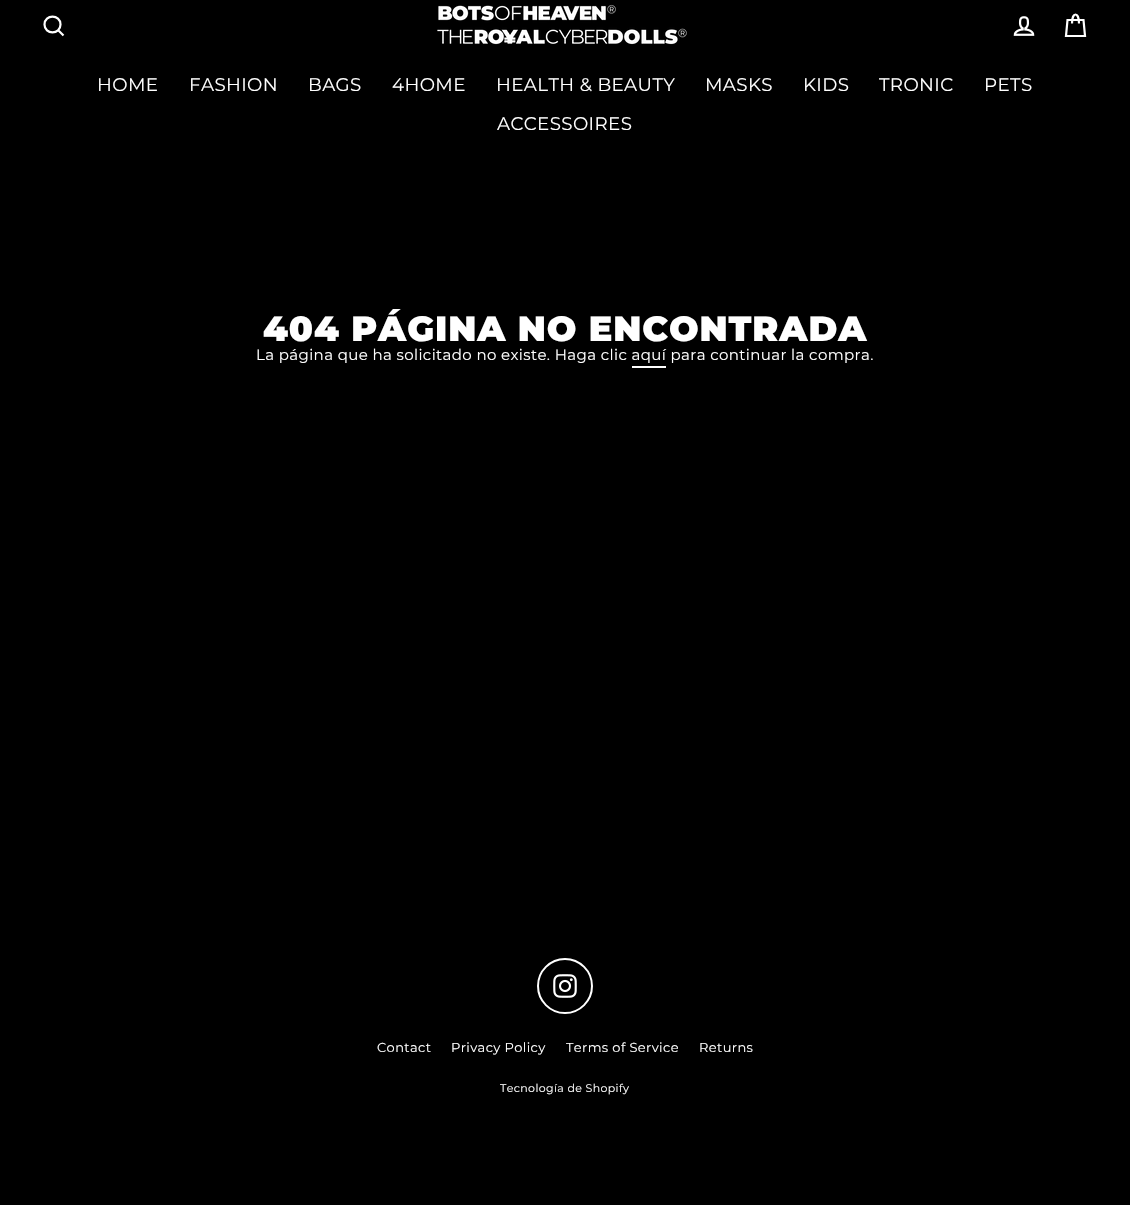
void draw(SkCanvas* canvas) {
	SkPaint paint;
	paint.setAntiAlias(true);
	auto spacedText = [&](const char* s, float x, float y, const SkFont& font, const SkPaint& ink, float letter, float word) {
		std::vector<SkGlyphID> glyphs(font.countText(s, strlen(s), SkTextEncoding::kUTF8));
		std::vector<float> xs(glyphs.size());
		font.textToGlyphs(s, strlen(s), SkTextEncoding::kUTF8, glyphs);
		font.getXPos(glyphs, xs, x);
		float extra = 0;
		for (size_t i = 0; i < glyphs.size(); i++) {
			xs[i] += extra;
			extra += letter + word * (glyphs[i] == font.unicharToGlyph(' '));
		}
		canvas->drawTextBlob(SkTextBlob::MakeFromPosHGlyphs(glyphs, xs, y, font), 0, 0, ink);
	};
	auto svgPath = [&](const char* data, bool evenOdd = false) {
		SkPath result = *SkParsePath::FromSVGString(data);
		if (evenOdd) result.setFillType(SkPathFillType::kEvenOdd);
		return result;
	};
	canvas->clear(0xff000000);
	paint.setStroke(true);
	paint.setStrokeWidth(2.2);
	paint.setColor(0xffffffff);
	canvas->drawPath(svgPath("M60.5 24.5C60.5 35 44.5 35 44.5 24.5C44.5 14 60.5 14 60.5 24.5ZM63.5 35.5L58.5 30.5"), paint);
	canvas->drawImageRect(SkImages::DeferredFromEncodedData(SkData::MakeFromFileName("img1.png")), SkRect::MakeXYWH(437, 4, 250, 41), SkSamplingOptions());
	canvas->drawImageRect(SkImages::DeferredFromEncodedData(SkData::MakeFromFileName("img2.png")), SkRect::MakeXYWH(1013, 16, 22, 20), SkSamplingOptions());
	canvas->drawPath(svgPath("M1072 23.5C1072 11.5 1079 11.5 1079 23.5M1067.5 20H1083.5L1085 36H1066Z"), paint);
	SkFont f1(fontMgr->matchFamilyStyle("Montserrat", SkFontStyle::Normal()), 18.25);
	f1.setSubpixel(true);
	paint.setStroke(false);
	spacedText("HOME", 97, 91, f1, paint, 0.38, 0);
	spacedText("FASHION", 189, 91, f1, paint, 0.38, 0);
	spacedText("BAGS", 308, 91, f1, paint, 0.38, 0);
	spacedText("4HOME", 392, 91, f1, paint, 0.38, 0);
	spacedText("HEALTH & BEAUTY", 496, 91, f1, paint, 0.38, 0);
	spacedText("MASKS", 705, 91, f1, paint, 0.38, 0);
	spacedText("KIDS", 803, 91, f1, paint, 0.38, 0);
	spacedText("TRONIC", 879, 91, f1, paint, 0.38, 0);
	spacedText("PETS", 984, 91, f1, paint, 0.38, 0);
	spacedText("ACCESSOIRES", 497, 130, f1, paint, 0.38, 0);
	SkFont f2(fontMgr->matchFamilyStyle("Montserrat", SkFontStyle(900, SkFontStyle::kNormal_Width, SkFontStyle::kUpright_Slant)), 35);
	f2.setSubpixel(true);
	spacedText("404 PÁGINA NO ENCONTRADA", 263, 341, f2, paint, 0.9, 0);
	SkFont f3(fontMgr->matchFamilyStyle("Montserrat", SkFontStyle::Normal()), 15);
	f3.setSubpixel(true);
	spacedText("La página que ha solicitado no existe. Haga clic aquí para continuar la compra.", 256, 360, f3, paint, 0.38, 0);
	canvas->drawRect(SkRect::MakeXYWH(632, 366, 34, 2), paint);
	paint.setStroke(true);
	paint.setStrokeWidth(2);
	canvas->drawCircle(565, 986, 27, paint);
	canvas->drawImageRect(SkImages::DeferredFromEncodedData(SkData::MakeFromFileName("img3.png")), SkRect::MakeXYWH(553, 974, 24, 24), SkSamplingOptions());
	SkFont f4(fontMgr->matchFamilyStyle("Montserrat", SkFontStyle::Normal()), 13);
	f4.setSubpixel(true);
	paint.setStroke(false);
	spacedText("Contact", 377, 1052, f4, paint, 0.38, 0);
	spacedText("Privacy Policy", 451, 1052, f4, paint, 0.38, 0);
	spacedText("Terms of Service", 566, 1052, f4, paint, 0.38, 0);
	spacedText("Returns", 699, 1052, f4, paint, 0.38, 0);
	SkFont f5(fontMgr->matchFamilyStyle("Montserrat", SkFontStyle::Normal()), 11);
	f5.setSubpixel(true);
	spacedText("Tecnología de Shopify", 500, 1092, f5, paint, 0.38, 0);
}
